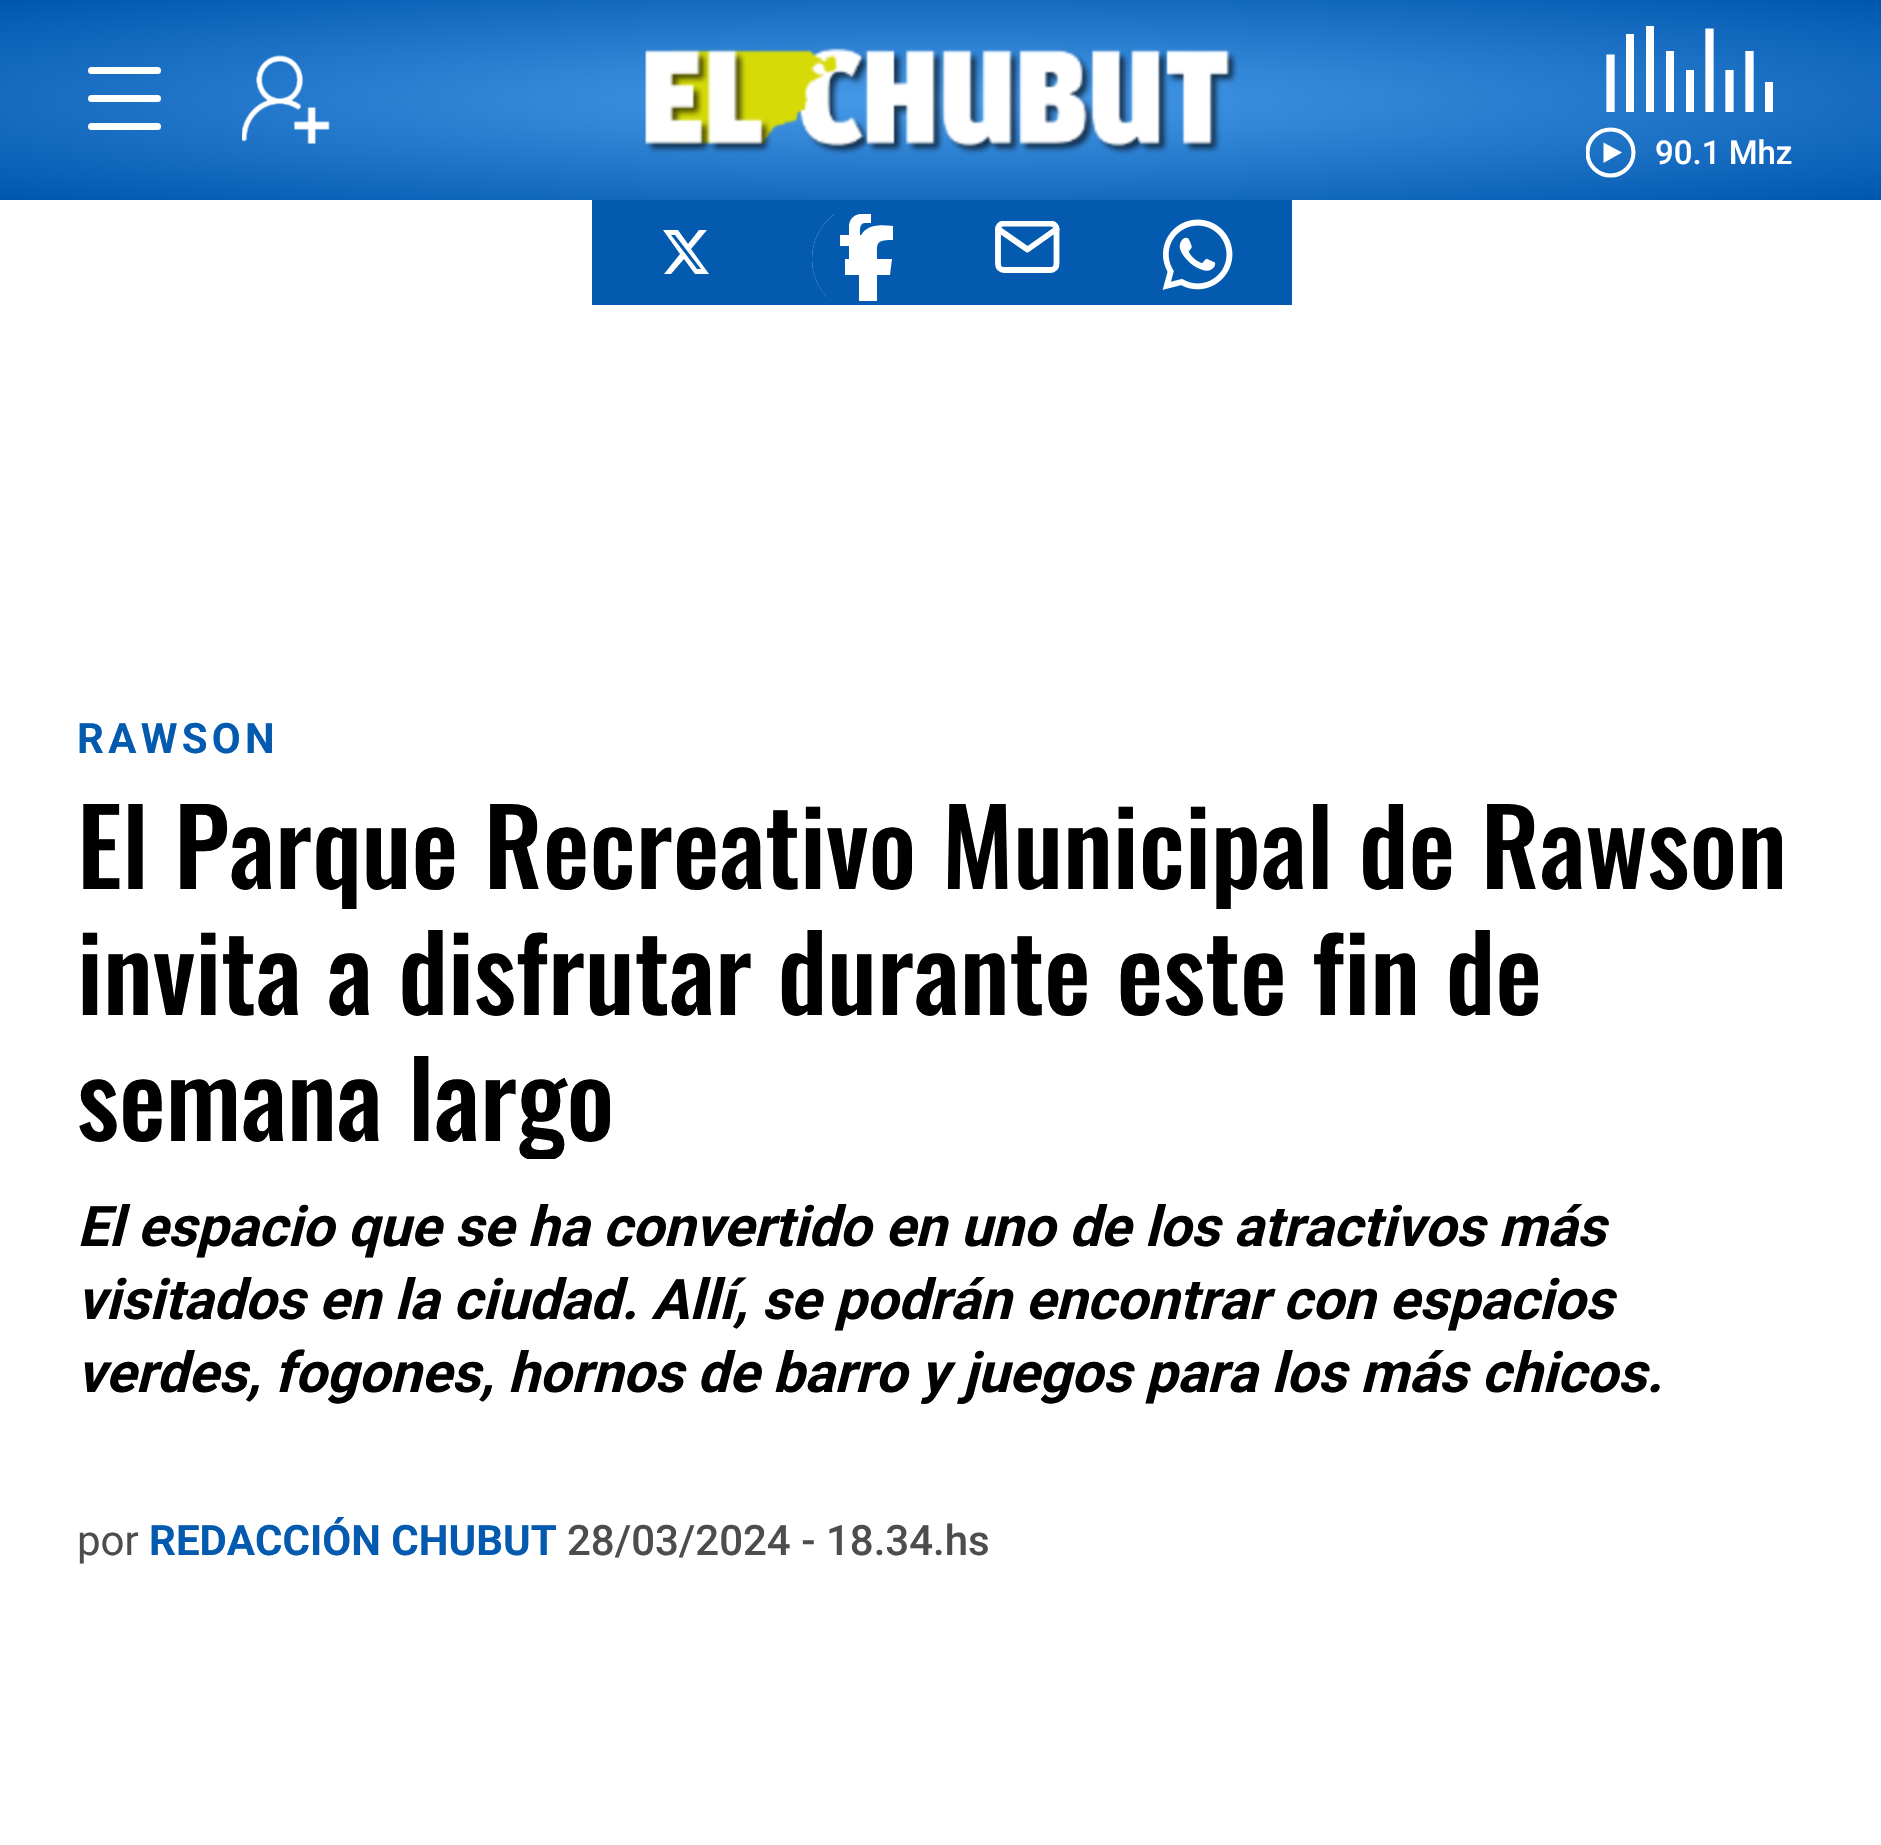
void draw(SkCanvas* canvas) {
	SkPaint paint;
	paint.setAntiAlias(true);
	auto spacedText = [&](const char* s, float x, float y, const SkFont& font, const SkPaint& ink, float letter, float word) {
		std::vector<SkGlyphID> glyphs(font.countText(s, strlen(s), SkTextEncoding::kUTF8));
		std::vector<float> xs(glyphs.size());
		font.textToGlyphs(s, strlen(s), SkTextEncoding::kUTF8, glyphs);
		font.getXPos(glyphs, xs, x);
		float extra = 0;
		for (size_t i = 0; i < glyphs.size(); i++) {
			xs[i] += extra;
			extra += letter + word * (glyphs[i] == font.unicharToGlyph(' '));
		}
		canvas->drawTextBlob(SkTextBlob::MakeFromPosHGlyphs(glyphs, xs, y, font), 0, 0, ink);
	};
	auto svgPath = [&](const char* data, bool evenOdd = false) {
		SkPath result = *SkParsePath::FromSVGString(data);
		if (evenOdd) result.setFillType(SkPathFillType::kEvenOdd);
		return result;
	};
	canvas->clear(0xffffffff);
	{
		const SkColor colors[] = {0xff499bea, 0xff0057ae};
		const float stops[] = {0, 1};
		SkMatrix m = SkMatrix::Translate(942, 100).preScale(1331, 141);
		paint.setShader(SkGradientShader::MakeRadial({0, 0}, 1, colors, stops, 2, SkTileMode::kClamp, 0, &m));
		paint.setAlpha(255);
	}
	canvas->drawRect(SkRect::MakeXYWH(0, 0, 1881, 200), paint);
	paint.setShader(nullptr);
	paint.setColor(0xffffffff);
	canvas->drawRoundRect(SkRect::MakeXYWH(88, 95, 73, 7), 3.5, 3.5, paint);
	canvas->drawRoundRect(SkRect::MakeXYWH(88, 67, 73, 7), 3.5, 3.5, paint);
	canvas->drawRoundRect(SkRect::MakeXYWH(88, 123, 73, 7), 3.5, 3.5, paint);
	canvas->drawImageRect(SkImages::DeferredFromEncodedData(SkData::MakeFromFileName("img1.png")), SkRect::MakeXYWH(242, 55, 88, 89), SkSamplingOptions());
	canvas->drawImageRect(SkImages::DeferredFromEncodedData(SkData::MakeFromFileName("img2.png")), SkRect::MakeXYWH(645, 48, 593, 107), SkSamplingOptions());
	paint.setStroke(true);
	paint.setStrokeWidth(8.3);
	canvas->drawPath(svgPath("M1610.5 112V54.5"), paint);
	paint.setStroke(false);
	canvas->drawRect(SkRect::MakeXYWH(1626, 34, 8, 78), paint);
	canvas->drawRect(SkRect::MakeXYWH(1646, 26, 8, 86), paint);
	canvas->drawRect(SkRect::MakeXYWH(1666, 51, 8, 61), paint);
	canvas->drawRect(SkRect::MakeXYWH(1686, 70, 8, 42), paint);
	paint.setStroke(true);
	canvas->drawPath(svgPath("M1709.5 112V28.5"), paint);
	canvas->drawPath(svgPath("M1729.5 112V70M1749.5 112V51"), paint);
	paint.setStroke(false);
	canvas->drawRect(SkRect::MakeXYWH(1765, 82, 8, 30), paint);
	canvas->save();
	canvas->clipRect(SkRect::MakeXYWH(1586, 25, 210, 154));
	paint.setStroke(true);
	paint.setStrokeWidth(4.1);
	canvas->drawCircle(1610.5, 152.5, 23, paint);
	canvas->restore();
	paint.setStroke(false);
	canvas->drawPath(svgPath("M1622 152.5L1603.5 163V142.5Z"), paint);
	SkFont f1(fontMgr->matchFamilyStyle("Roboto", SkFontStyle(500, SkFontStyle::kNormal_Width, SkFontStyle::kUpright_Slant)), 33);
	f1.setSubpixel(true);
	canvas->drawString("90.1 Mhz", 1655, 164, f1, paint);
	paint.setColor(0xff045aaf);
	canvas->drawRect(SkRect::MakeXYWH(592, 200, 700, 105), paint);
	paint.setColor(0xffffffff);
	canvas->drawPath(svgPath("M699 230H707L691 249L709 274H695L684 259L671 274H664L680 254L663 230H678L688 244ZM697 269H701L675 235H671Z"), paint);
	canvas->save();
	canvas->clipRect(SkRect::MakeXYWH(812, 214, 88, 87));
	canvas->drawCircle(868, 259, 56, paint);
	paint.setColor(0xff045aaf);
	canvas->drawPath(svgPath("M812 259C812 287 832 310 859 315V275H845V259H859V242C862 224 879 224 893 226V240C875 240 877 243 877 259H892L890 275H877V315C904 310 924 287 924 259C924 228 899 203 868 203C837 203 812 228 812 259Z", true), paint);
	canvas->restore();
	canvas->save();
	canvas->clipRect(SkRect::MakeXYWH(840, 214, 32, 59));
	paint.setColor(0xffffffff);
	canvas->drawPath(svgPath("M865 223H871V214C862 213 851 213 849 225V235H840V246H849V273H860V246H869L871 235H860C860 231 859 223 865 223Z"), paint);
	canvas->restore();
	canvas->save();
	canvas->clipRect(SkRect::MakeXYWH(994, 221, 67, 52));
	paint.setStroke(true);
	paint.setStrokeWidth(5.8);
	paint.setStrokeCap(SkPaint::kRound_Cap);
	paint.setStrokeJoin(SkPaint::kRound_Join);
	canvas->drawPath(svgPath("M1004 223.5H1050.5C1054 223.5 1056.5 226 1056.5 229V264C1056.5 267.5 1054 270 1050.5 270H1004C1000.5 270 998 267.5 998 264V229C998 226 1000.5 223.5 1004 223.5Z"), paint);
	canvas->restore();
	canvas->drawPath(svgPath("M1056.5 229L1027.5 249.5L998 229"), paint);
	canvas->drawImageRect(SkImages::DeferredFromEncodedData(SkData::MakeFromFileName("img3.png")), SkRect::MakeXYWH(1162, 219, 71, 71), SkSamplingOptions());
	SkFont f2(fontMgr->matchFamilyStyle("Roboto", SkFontStyle::Bold()), 42);
	f2.setSubpixel(true);
	paint.setStroke(false);
	paint.setColor(0xff045aaf);
	spacedText("RAWSON", 77, 753, f2, paint, 4.25, 0);
	SkFont f3(fontMgr->matchFamilyStyle("Oswald", SkFontStyle(500, SkFontStyle::kNormal_Width, SkFontStyle::kUpright_Slant)), 105);
	f3.setSubpixel(true);
	paint.setColor(0xff000000);
	canvas->drawString("El Parque Recreativo Municipal de Rawson", 77, 889, f3, paint);
	canvas->drawString("invita a disfrutar durante este fin de", 77, 1015, f3, paint);
	canvas->save();
	canvas->clipRect(SkRect::MakeXYWH(77, 781, 1729, 378));
	canvas->drawString("semana largo", 77, 1141, f3, paint);
	canvas->restore();
	SkFont f4(fontMgr->matchFamilyStyle("Roboto", SkFontStyle::BoldItalic()), 56);
	f4.setSubpixel(true);
	canvas->drawString("El espacio que se ha convertido en uno de los atractivos más", 77, 1246, f4, paint);
	canvas->drawString("visitados en la ciudad. Allí, se podrán encontrar con espacios", 77, 1319, f4, paint);
	canvas->drawString("verdes, fogones, hornos de barro y juegos para los más chicos.", 77, 1392, f4, paint);
	SkFont f5(fontMgr->matchFamilyStyle("Roboto", SkFontStyle::Normal()), 42);
	f5.setSubpixel(true);
	paint.setColor(0xff4d4d4d);
	canvas->drawString("por", 77, 1555, f5, paint);
	paint.setColor(0xff045aaf);
	canvas->drawString("REDACCIÓN CHUBUT", 149, 1555, f2, paint);
	SkFont f6(fontMgr->matchFamilyStyle("Roboto", SkFontStyle(500, SkFontStyle::kNormal_Width, SkFontStyle::kUpright_Slant)), 42);
	f6.setSubpixel(true);
	paint.setColor(0xff4d4d4d);
	canvas->drawString("28/03/2024 - 18.34.hs", 567, 1555, f6, paint);
}
